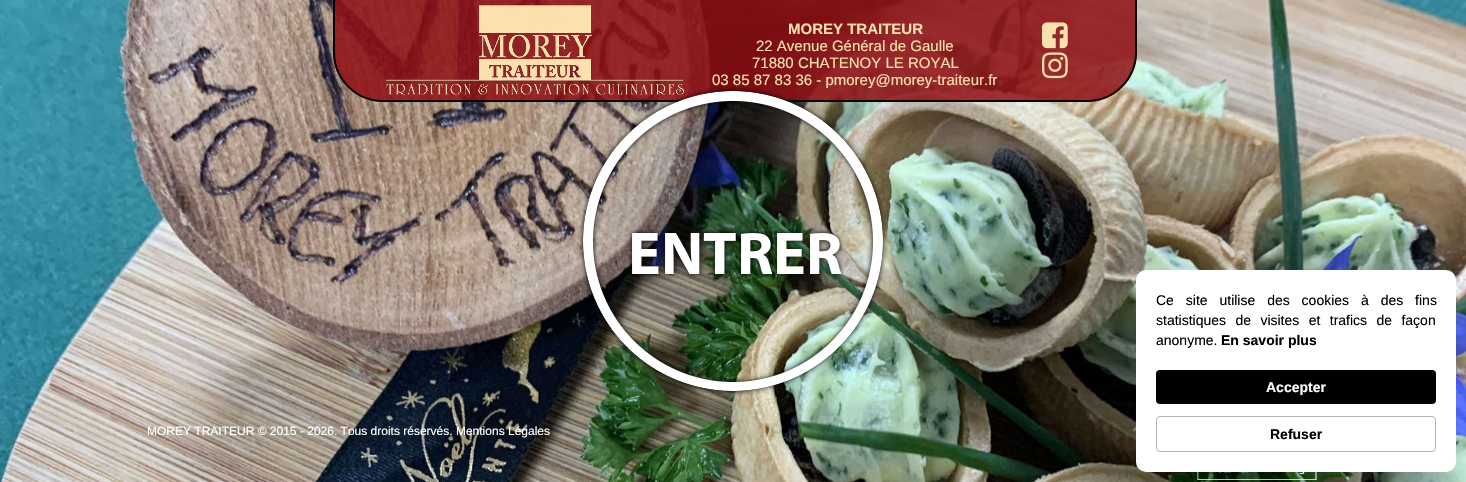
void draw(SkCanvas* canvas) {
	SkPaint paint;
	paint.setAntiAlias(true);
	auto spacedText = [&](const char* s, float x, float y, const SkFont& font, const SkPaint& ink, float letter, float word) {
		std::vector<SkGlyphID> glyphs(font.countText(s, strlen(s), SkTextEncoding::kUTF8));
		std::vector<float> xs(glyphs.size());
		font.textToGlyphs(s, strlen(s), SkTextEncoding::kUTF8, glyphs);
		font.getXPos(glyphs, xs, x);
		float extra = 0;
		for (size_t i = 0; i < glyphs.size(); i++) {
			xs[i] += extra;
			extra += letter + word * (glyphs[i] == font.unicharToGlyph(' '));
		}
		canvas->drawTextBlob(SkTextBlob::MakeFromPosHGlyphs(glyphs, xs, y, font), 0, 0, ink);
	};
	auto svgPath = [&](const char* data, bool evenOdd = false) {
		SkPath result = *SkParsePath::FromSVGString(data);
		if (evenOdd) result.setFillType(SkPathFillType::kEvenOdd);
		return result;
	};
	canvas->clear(0xffffffff);
	canvas->drawImageRect(SkImages::DeferredFromEncodedData(SkData::MakeFromFileName("img1.png")), SkRect::MakeXYWH(0, 0, 1466, 482), SkSamplingOptions());
	paint.setColor(0xd98f0e14);
	canvas->drawPath(svgPath("M333-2H1137V52C1137 79.5 1114.5 102 1087 102H383C355.5 102 333 79.5 333 52Z"), paint);
	paint.setStroke(true);
	paint.setStrokeWidth(2);
	paint.setColor(0xf2000000);
	canvas->drawPath(svgPath("M334-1H1136V52C1136 79 1114 101 1087 101H383C356 101 334 79 334 52Z"), paint);
	canvas->drawImageRect(SkImages::DeferredFromEncodedData(SkData::MakeFromFileName("img2.png")), SkRect::MakeXYWH(386, 5, 298, 90), SkSamplingOptions());
	SkFont f1(fontMgr->matchFamilyStyle("Liberation Sans", SkFontStyle::Bold()), 15);
	f1.setSubpixel(true);
	paint.setStroke(false);
	paint.setColor(0xfff9e1ad);
	canvas->drawString("MOREY TRAITEUR", 788, 34, f1, paint);
	SkFont f2(fontMgr->matchFamilyStyle("Liberation Sans", SkFontStyle::Normal()), 15);
	f2.setSubpixel(true);
	canvas->drawString("22 Avenue Général de Gaulle", 756, 51, f2, paint);
	canvas->drawString("71880 CHATENOY LE ROYAL", 752, 68, f2, paint);
	canvas->drawString("03 85 87 83 36 - pmorey@morey-traiteur.fr", 712, 85, f2, paint);
	canvas->drawImageRect(SkImages::DeferredFromEncodedData(SkData::MakeFromFileName("img3.png")), SkRect::MakeXYWH(1042, 22, 26, 27), SkSamplingOptions());
	canvas->drawImageRect(SkImages::DeferredFromEncodedData(SkData::MakeFromFileName("img4.png")), SkRect::MakeXYWH(1042, 52, 26, 27), SkSamplingOptions());
	canvas->drawImageRect(SkImages::DeferredFromEncodedData(SkData::MakeFromFileName("img5.png")), SkRect::MakeXYWH(578, 86, 313, 310), SkSamplingOptions());
	SkFont f3(fontMgr->matchFamilyStyle("Liberation Sans", SkFontStyle::Normal()), 12);
	f3.setSubpixel(true);
	paint.setColor(0xffffffff);
	canvas->drawString("MOREY TRAITEUR © 2015 - 2026. Tous droits réservés. Mentions Légales", 147, 435, f3, paint);
	canvas->drawImageRect(SkImages::DeferredFromEncodedData(SkData::MakeFromFileName("img6.png")), SkRect::MakeXYWH(1197, 472, 120, 8), SkSamplingOptions());
	canvas->drawRoundRect(SkRect::MakeXYWH(1136, 270, 320, 202), 10, 10, paint);
	SkFont f4(fontMgr->matchFamilyStyle("Liberation Sans", SkFontStyle::Normal()), 14);
	f4.setSubpixel(true);
	paint.setColor(0xff000000);
	spacedText("Ce site utilise des cookies à des fins", 1156, 305, f4, paint, 0, 8);
	spacedText("statistiques de visites et trafics de façon", 1156, 325, f4, paint, 0, 5.5);
	canvas->drawString("anonyme.", 1156, 345, f4, paint);
	SkFont f5(fontMgr->matchFamilyStyle("Liberation Sans", SkFontStyle::Bold()), 14);
	f5.setSubpixel(true);
	canvas->drawString("En savoir plus", 1221, 345, f5, paint);
	canvas->drawRoundRect(SkRect::MakeXYWH(1156, 370, 280, 34), 4, 4, paint);
	paint.setColor(0xffffffff);
	canvas->drawString("Accepter", 1266, 392, f5, paint);
	paint.setStroke(true);
	paint.setStrokeWidth(1);
	paint.setColor(0xffb3b3b3);
	canvas->drawRoundRect(SkRect::MakeXYWH(1156.5, 416.5, 279, 35), 3.5, 3.5, paint);
	paint.setStroke(false);
	paint.setColor(0xff000000);
	canvas->drawString("Refuser", 1270, 439, f5, paint);
}
